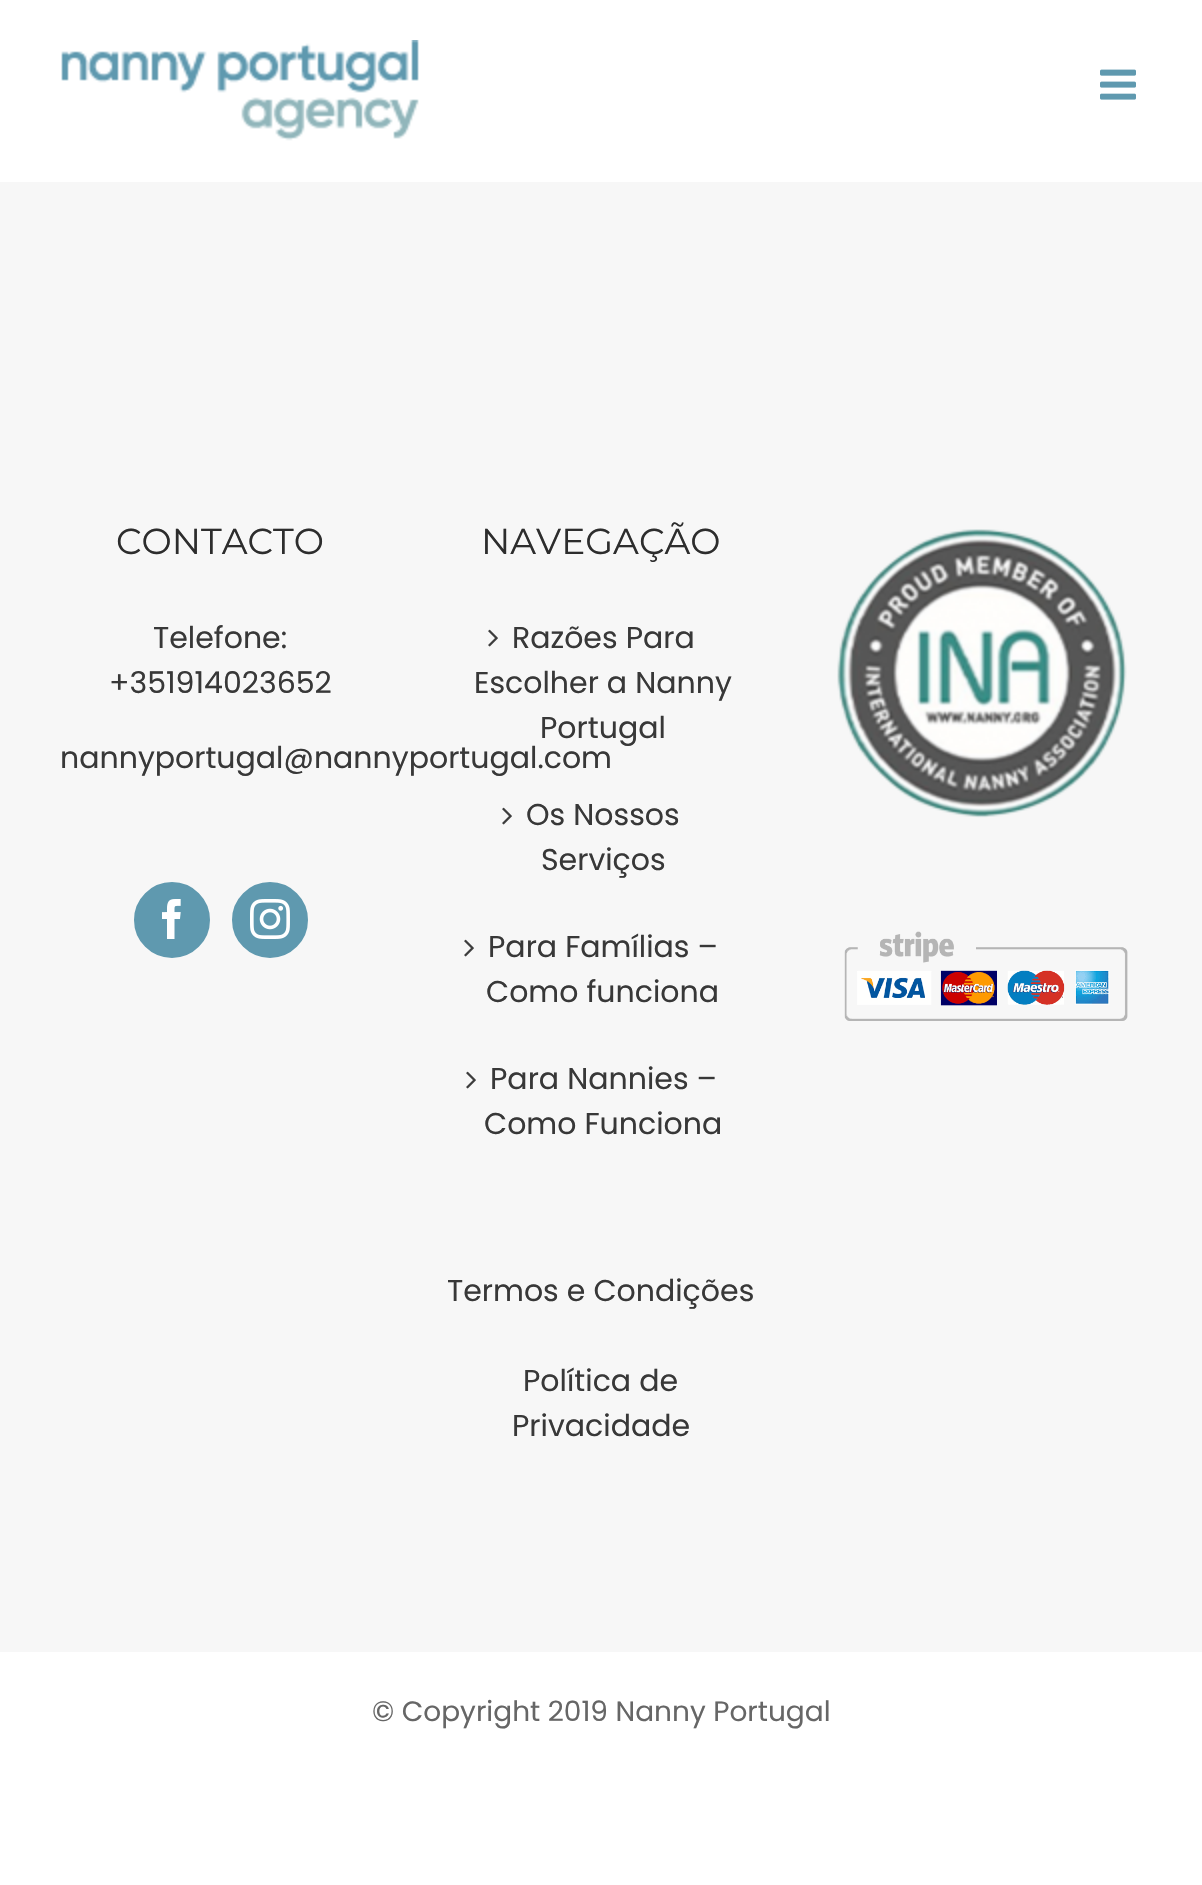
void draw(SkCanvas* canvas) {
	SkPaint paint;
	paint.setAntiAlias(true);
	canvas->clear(0xffffffff);
	canvas->drawImageRect(SkImages::DeferredFromEncodedData(SkData::MakeFromFileName("img1.png")), SkRect::MakeXYWH(61, 40, 358, 101), SkSamplingOptions());
	canvas->drawImageRect(SkImages::DeferredFromEncodedData(SkData::MakeFromFileName("img2.png")), SkRect::MakeXYWH(1100, 69, 36, 31), SkSamplingOptions());
	paint.setColor(0xfff7f7f7);
	canvas->drawRect(SkRect::MakeXYWH(0, 182, 1202, 1470), paint);
	SkFont f1(fontMgr->matchFamilyStyle("Montserrat", SkFontStyle(100, SkFontStyle::kNormal_Width, SkFontStyle::kUpright_Slant)), 36);
	f1.setSubpixel(true);
	paint.setColor(0xff2d2d2d);
	canvas->drawString("NAVEGAÇÃO", 481, 554, f1, paint);
	canvas->drawImageRect(SkImages::DeferredFromEncodedData(SkData::MakeFromFileName("img3.png")), SkRect::MakeXYWH(488, 629, 10, 18), SkSamplingOptions());
	SkFont f2(fontMgr->matchFamilyStyle("Poppins", SkFontStyle::Normal()), 30);
	f2.setSubpixel(true);
	paint.setColor(0xff383838);
	canvas->drawString("Razões Para", 512, 648, f2, paint);
	canvas->drawString("Escolher a Nanny", 474, 693, f2, paint);
	canvas->drawString("Portugal", 540, 738, f2, paint);
	canvas->drawImageRect(SkImages::DeferredFromEncodedData(SkData::MakeFromFileName("img3.png")), SkRect::MakeXYWH(502, 807, 10, 18), SkSamplingOptions());
	canvas->drawString("Os Nossos", 526, 825, f2, paint);
	canvas->drawString("Serviços", 541, 870, f2, paint);
	canvas->drawImageRect(SkImages::DeferredFromEncodedData(SkData::MakeFromFileName("img3.png")), SkRect::MakeXYWH(464, 939, 10, 18), SkSamplingOptions());
	canvas->drawString("Para Famílias –", 488, 957, f2, paint);
	canvas->drawString("Como funciona", 486, 1002, f2, paint);
	canvas->drawImageRect(SkImages::DeferredFromEncodedData(SkData::MakeFromFileName("img3.png")), SkRect::MakeXYWH(466, 1071, 10, 18), SkSamplingOptions());
	canvas->drawString("Para Nannies –", 490, 1089, f2, paint);
	canvas->drawString("Como Funciona", 484, 1134, f2, paint);
	canvas->drawString("Termos e Condições", 447, 1301, f2, paint);
	canvas->drawString("Política de", 523, 1391, f2, paint);
	canvas->drawString("Privacidade", 512, 1436, f2, paint);
	paint.setColor(0xff2d2d2d);
	canvas->drawString("CONTACTO", 116, 554, f1, paint);
	paint.setColor(0xff383838);
	canvas->drawString("Telefone:", 153, 648, f2, paint);
	canvas->drawString("+351914023652", 109, 693, f2, paint);
	canvas->drawString("nannyportugal@nannyportugal.com", 60, 768, f2, paint);
	paint.setColor(0xff5f99af);
	canvas->drawCircle(172, 920, 37, paint);
	paint.setStroke(true);
	paint.setStrokeWidth(2);
	canvas->drawCircle(172, 920, 37, paint);
	canvas->drawImageRect(SkImages::DeferredFromEncodedData(SkData::MakeFromFileName("img4.png")), SkRect::MakeXYWH(162, 899, 19, 40), SkSamplingOptions());
	paint.setStroke(false);
	canvas->drawCircle(270, 920, 37, paint);
	paint.setStroke(true);
	canvas->drawCircle(270, 920, 37, paint);
	canvas->drawImageRect(SkImages::DeferredFromEncodedData(SkData::MakeFromFileName("img5.png")), SkRect::MakeXYWH(250, 899, 40, 40), SkSamplingOptions());
	canvas->drawImageRect(SkImages::DeferredFromEncodedData(SkData::MakeFromFileName("img6.png")), SkRect::MakeXYWH(837, 529, 290, 289), SkSamplingOptions());
	canvas->drawImageRect(SkImages::DeferredFromEncodedData(SkData::MakeFromFileName("img7.png")), SkRect::MakeXYWH(844, 931, 284, 90), SkSamplingOptions());
	SkFont f3(fontMgr->matchFamilyStyle("Poppins", SkFontStyle::Normal()), 28);
	f3.setSubpixel(true);
	paint.setStroke(false);
	paint.setColor(0xff666666);
	canvas->drawString("© Copyright 2019 Nanny Portugal", 372, 1721, f3, paint);
}
